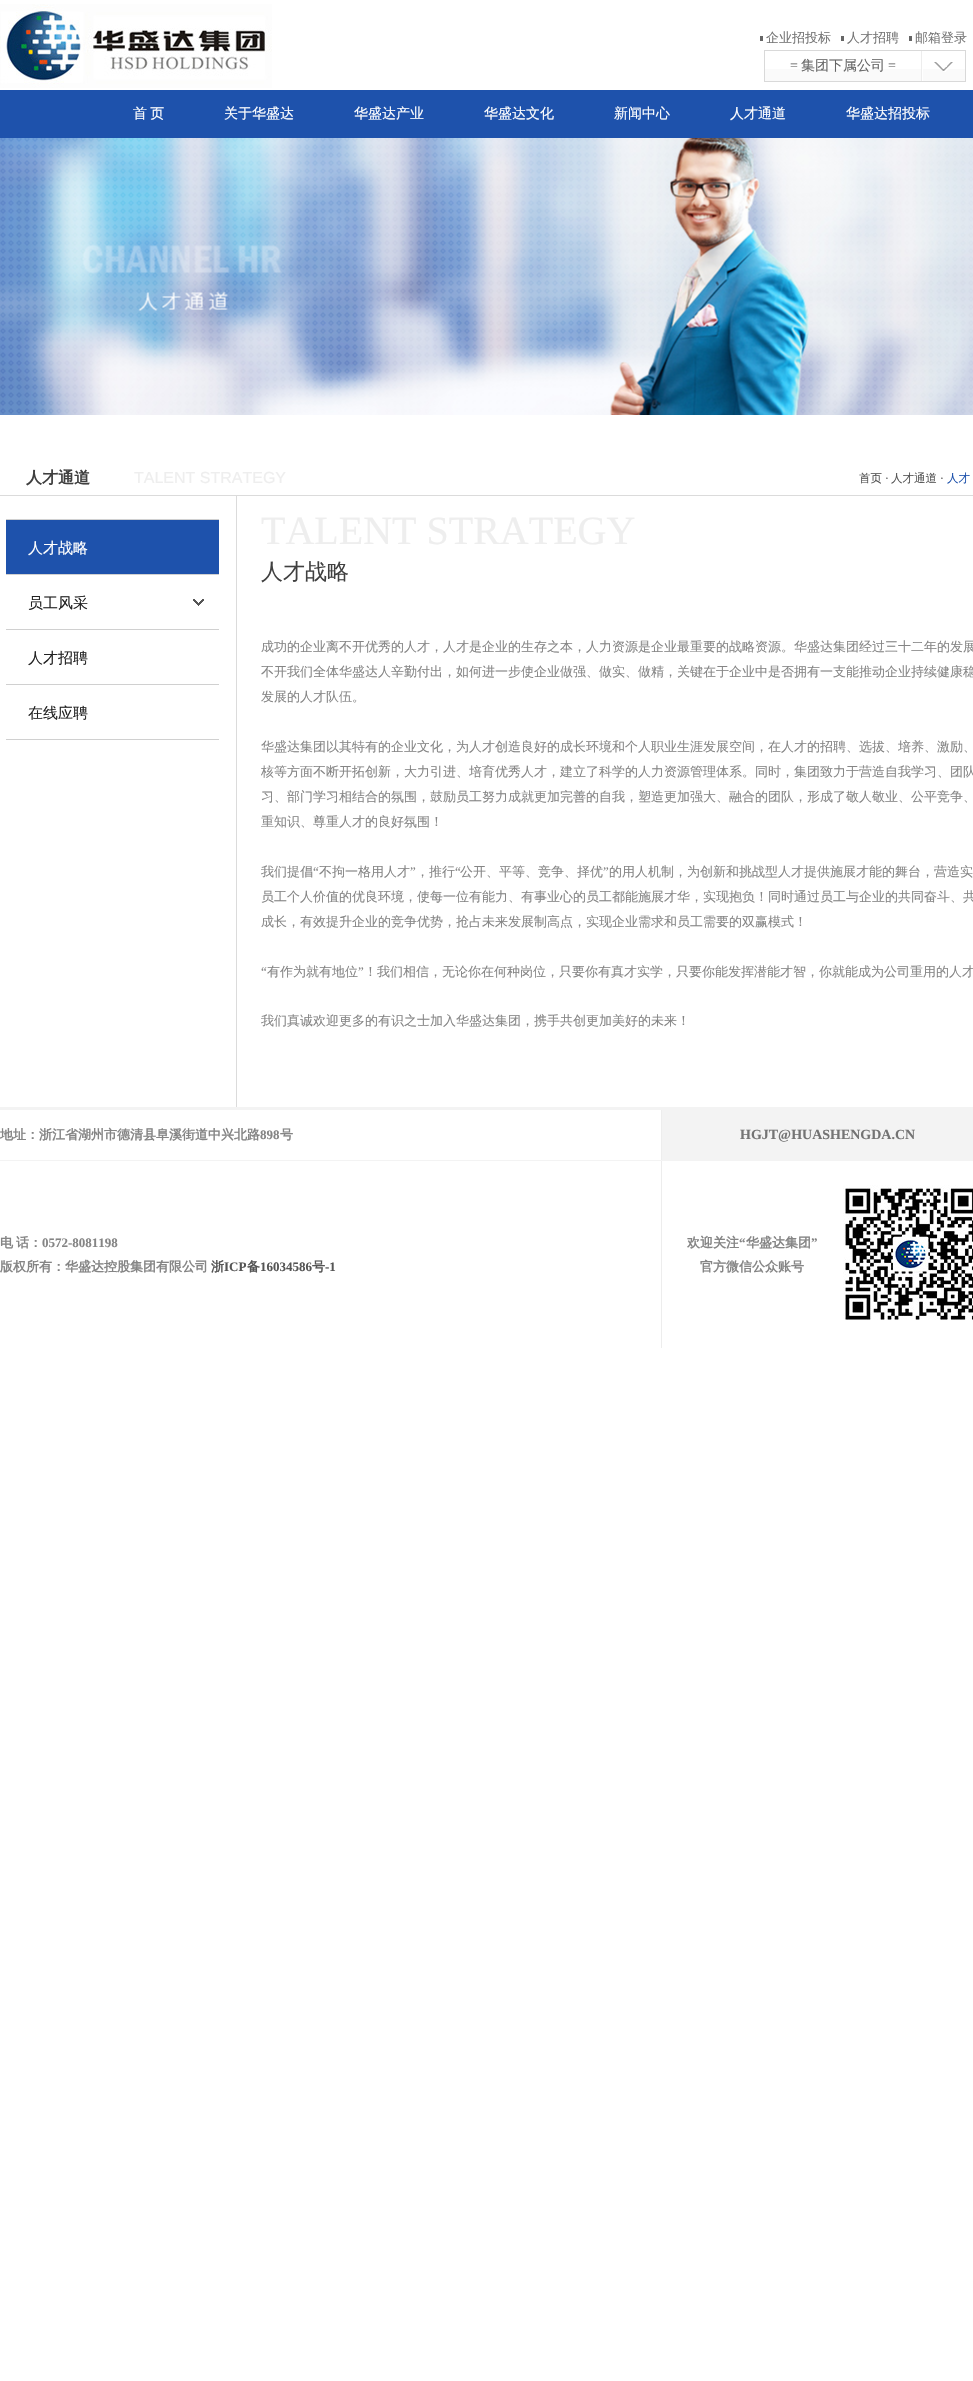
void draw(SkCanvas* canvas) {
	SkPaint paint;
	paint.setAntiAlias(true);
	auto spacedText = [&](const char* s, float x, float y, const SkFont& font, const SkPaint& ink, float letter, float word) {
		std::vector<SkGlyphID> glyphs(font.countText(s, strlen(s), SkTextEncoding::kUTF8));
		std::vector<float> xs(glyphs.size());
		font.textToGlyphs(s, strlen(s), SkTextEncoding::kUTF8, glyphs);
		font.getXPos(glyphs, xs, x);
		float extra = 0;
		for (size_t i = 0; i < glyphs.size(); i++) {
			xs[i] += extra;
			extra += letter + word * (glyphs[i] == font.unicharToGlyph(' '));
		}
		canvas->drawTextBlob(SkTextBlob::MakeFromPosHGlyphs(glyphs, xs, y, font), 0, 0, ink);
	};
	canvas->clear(0xffffffff);
	canvas->drawImageRect(SkImages::DeferredFromEncodedData(SkData::MakeFromFileName("img1.png")), SkRect::MakeXYWH(0, 4, 272, 84), SkSamplingOptions());
	paint.setColor(0xff666666);
	canvas->drawRect(SkRect::MakeXYWH(760, 36, 3, 5), paint);
	SkFont f1(fontMgr->matchFamilyStyle("WenQuanYi Zen Hei", SkFontStyle(500, SkFontStyle::kNormal_Width, SkFontStyle::kUpright_Slant)), 13);
	f1.setSubpixel(true);
	paint.setColor(0xff747474);
	canvas->drawString("企业招投标", 766, 42, f1, paint);
	canvas->drawString("人才招聘", 847, 42, f1, paint);
	paint.setColor(0xff666666);
	canvas->drawRect(SkRect::MakeXYWH(841, 36, 3, 5), paint);
	paint.setColor(0xff747474);
	canvas->drawString("邮箱登录", 915, 42, f1, paint);
	paint.setColor(0xff666666);
	canvas->drawRect(SkRect::MakeXYWH(909, 36, 3, 5), paint);
	paint.setColor(0xfffafafa);
	canvas->drawRect(SkRect::MakeXYWH(765, 69, 200, 12), paint);
	paint.setStroke(true);
	paint.setStrokeWidth(1);
	paint.setColor(0xffd9d9d9);
	canvas->drawRect(SkRect::MakeXYWH(764.5, 50.5, 201, 31), paint);
	paint.setStroke(false);
	paint.setColor(0xffededed);
	canvas->drawRect(SkRect::MakeXYWH(921, 51, 1, 30), paint);
	SkFont f2(fontMgr->matchFamilyStyle("Liberation Serif", SkFontStyle::Normal()), 14);
	f2.setSubpixel(true);
	paint.setColor(0xff666666);
	canvas->drawString("=", 790, 70, f2, paint);
	SkFont f3(fontMgr->matchFamilyStyle("WenQuanYi Zen Hei", SkFontStyle(500, SkFontStyle::kNormal_Width, SkFontStyle::kUpright_Slant)), 14);
	f3.setSubpixel(true);
	canvas->drawString("集团下属公司", 801, 70, f3, paint);
	canvas->drawString("=", 888, 70, f2, paint);
	canvas->drawImageRect(SkImages::DeferredFromEncodedData(SkData::MakeFromFileName("img2.png")), SkRect::MakeXYWH(934, 62, 19, 10), SkSamplingOptions());
	paint.setColor(0xffffffff);
	canvas->drawRect(SkRect::MakeXYWH(922, 69, 1, 12), paint);
	paint.setColor(0xff1e52ac);
	canvas->drawRect(SkRect::MakeXYWH(0, 90, 973, 48), paint);
	paint.setColor(0xffffffff);
	spacedText("首 页", 133, 118, f3, paint, 0, -1);
	canvas->drawString("关于华盛达", 224, 118, f3, paint);
	canvas->drawString("华盛达产业", 354, 118, f3, paint);
	canvas->drawString("华盛达文化", 484, 118, f3, paint);
	canvas->drawString("新闻中心", 614, 118, f3, paint);
	canvas->drawString("人才通道", 730, 118, f3, paint);
	canvas->drawString("华盛达招投标", 846, 118, f3, paint);
	canvas->drawImageRect(SkImages::DeferredFromEncodedData(SkData::MakeFromFileName("img3.png")), SkRect::MakeXYWH(0, 138, 973, 277), SkSamplingOptions());
	SkFont f4(fontMgr->matchFamilyStyle("WenQuanYi Zen Hei", SkFontStyle::Bold()), 16);
	f4.setSubpixel(true);
	paint.setColor(0xff404040);
	canvas->drawString("人才通道", 26, 483, f4, paint);
	SkFont f5(fontMgr->matchFamilyStyle("Liberation Sans", SkFontStyle::Normal()), 16);
	f5.setSubpixel(true);
	paint.setColor(0xffeeeeee);
	canvas->drawString("TALENT STRATEGY", 134, 483, f5, paint);
	SkFont f6(fontMgr->matchFamilyStyle("WenQuanYi Zen Hei", SkFontStyle(500, SkFontStyle::kNormal_Width, SkFontStyle::kUpright_Slant)), 11.5);
	f6.setSubpixel(true);
	paint.setColor(0xff555555);
	canvas->drawString("首页", 859, 482, f6, paint);
	SkFont f7(fontMgr->matchFamilyStyle("Liberation Serif", SkFontStyle::Normal()), 11.5);
	f7.setSubpixel(true);
	paint.setColor(0xff404040);
	canvas->drawString("·", 885, 482, f7, paint);
	paint.setColor(0xff555555);
	canvas->drawString("人才通道", 891, 482, f6, paint);
	paint.setColor(0xff404040);
	canvas->drawString("·", 940, 482, f7, paint);
	paint.setColor(0xff1e52ac);
	canvas->drawString("人才", 947, 482, f6, paint);
	paint.setColor(0xffdbdbdb);
	canvas->drawRect(SkRect::MakeXYWH(0, 495, 973, 1), paint);
	paint.setColor(0xffd0d0d0);
	canvas->drawRect(SkRect::MakeXYWH(6, 739, 213, 1), paint);
	paint.setColor(0xff1e52ac);
	canvas->drawRect(SkRect::MakeXYWH(6, 520, 213, 54), paint);
	paint.setColor(0xffd0d0d0);
	canvas->drawRect(SkRect::MakeXYWH(6, 519, 213, 1), paint);
	SkFont f8(fontMgr->matchFamilyStyle("WenQuanYi Zen Hei", SkFontStyle(500, SkFontStyle::kNormal_Width, SkFontStyle::kUpright_Slant)), 15);
	f8.setSubpixel(true);
	paint.setColor(0xffffffff);
	canvas->drawString("人才战略", 28, 553, f8, paint);
	paint.setColor(0xffd0d0d0);
	canvas->drawRect(SkRect::MakeXYWH(6, 574, 213, 1), paint);
	paint.setColor(0xff222222);
	canvas->drawString("员工风采", 28, 608, f8, paint);
	canvas->drawImageRect(SkImages::DeferredFromEncodedData(SkData::MakeFromFileName("img4.png")), SkRect::MakeXYWH(193, 599, 11, 7), SkSamplingOptions());
	paint.setColor(0xffd0d0d0);
	canvas->drawRect(SkRect::MakeXYWH(6, 629, 213, 1), paint);
	paint.setColor(0xff222222);
	canvas->drawString("人才招聘", 28, 663, f8, paint);
	paint.setColor(0xffd0d0d0);
	canvas->drawRect(SkRect::MakeXYWH(6, 684, 213, 1), paint);
	paint.setColor(0xff222222);
	canvas->drawString("在线应聘", 28, 718, f8, paint);
	paint.setColor(0xffdbdbdb);
	canvas->drawRect(SkRect::MakeXYWH(236, 496, 1, 611), paint);
	SkFont f9(fontMgr->matchFamilyStyle("Liberation Serif", SkFontStyle::Normal()), 40);
	f9.setSubpixel(true);
	paint.setColor(0xffeeeeee);
	canvas->drawString("TALENT STRATEGY", 261, 544, f9, paint);
	SkFont f10(fontMgr->matchFamilyStyle("WenQuanYi Zen Hei", SkFontStyle(500, SkFontStyle::kNormal_Width, SkFontStyle::kUpright_Slant)), 22);
	f10.setSubpixel(true);
	paint.setColor(0xff404040);
	canvas->drawString("人才战略", 261, 579, f10, paint);
	paint.setColor(0xff858585);
	canvas->drawString("成功的企业离不开优秀的人才，人才是企业的生存之本，人力资源是企业最重要的战略资源。华盛达集团经过三十二年的发展", 261, 651, f1, paint);
	canvas->drawString("不开我们全体华盛达人辛勤付出，如何进一步使企业做强、做实、做精，关键在于企业中是否拥有一支能推动企业持续健康稳", 261, 676, f1, paint);
	canvas->drawString("发展的人才队伍。", 261, 701, f1, paint);
	canvas->drawString("华盛达集团以其特有的企业文化，为人才创造良好的成长环境和个人职业生涯发展空间，在人才的招聘、选拔、培养、激励、", 261, 751, f1, paint);
	canvas->drawString("核等方面不断开拓创新，大力引进、培育优秀人才，建立了科学的人力资源管理体系。同时，集团致力于营造自我学习、团队", 261, 776, f1, paint);
	canvas->drawString("习、部门学习相结合的氛围，鼓励员工努力成就更加完善的自我，塑造更加强大、融合的团队，形成了敬人敬业、公平竞争、", 261, 801, f1, paint);
	canvas->drawString("重知识、尊重人才的良好氛围！", 261, 826, f1, paint);
	canvas->drawString("我们提倡", 261, 876, f1, paint);
	SkFont f11(fontMgr->matchFamilyStyle("Liberation Serif", SkFontStyle::Normal()), 13);
	f11.setSubpixel(true);
	canvas->drawString("“", 313, 876, f11, paint);
	canvas->drawString("不拘一格用人才", 319, 876, f1, paint);
	canvas->drawString("”", 410, 876, f11, paint);
	canvas->drawString("，推行", 416, 876, f1, paint);
	canvas->drawString("“", 455, 876, f11, paint);
	canvas->drawString("公开、平等、竞争、择优", 460, 876, f1, paint);
	canvas->drawString("”", 603, 876, f11, paint);
	canvas->drawString("的用人机制，为创新和挑战型人才提供施展才能的舞台，营造实", 609, 876, f1, paint);
	canvas->drawString("员工个人价值的优良环境，使每一位有能力、有事业心的员工都能施展才华，实现抱负！同时通过员工与企业的共同奋斗、共", 261, 901, f1, paint);
	canvas->drawString("成长，有效提升企业的竞争优势，抢占未来发展制高点，实现企业需求和员工需要的双赢模式！", 261, 926, f1, paint);
	canvas->drawString("“", 261, 976, f11, paint);
	canvas->drawString("有作为就有地位", 267, 976, f1, paint);
	canvas->drawString("”", 358, 976, f11, paint);
	canvas->drawString("！我们相信，无论你在何种岗位，只要你有真才实学，只要你能发挥潜能才智，你就能成为公司重用的人才", 364, 976, f1, paint);
	canvas->drawString("我们真诚欢迎更多的有识之士加入华盛达集团，携手共创更加美好的未来！", 261, 1025, f1, paint);
	paint.setColor(0xfff3f3f3);
	canvas->drawRect(SkRect::MakeXYWH(0, 1107, 973, 3), paint);
	SkFont f12(fontMgr->matchFamilyStyle("WenQuanYi Zen Hei", SkFontStyle::Bold()), 13);
	f12.setSubpixel(true);
	paint.setColor(0xff858585);
	canvas->drawString("地址：浙江省湖州市德清县阜溪街道中兴北路", 0, 1139, f12, paint);
	SkFont f13(fontMgr->matchFamilyStyle("Liberation Serif", SkFontStyle::Bold()), 13);
	f13.setSubpixel(true);
	canvas->drawString("898", 260, 1139, f13, paint);
	canvas->drawString("号", 280, 1139, f12, paint);
	paint.setColor(0xffededed);
	canvas->drawRect(SkRect::MakeXYWH(661, 1110, 1, 50), paint);
	paint.setColor(0xfff3f3f3);
	canvas->drawRect(SkRect::MakeXYWH(662, 1110, 311, 50), paint);
	SkFont f14(fontMgr->matchFamilyStyle("Liberation Serif", SkFontStyle::Bold()), 14);
	f14.setSubpixel(true);
	paint.setColor(0xff747474);
	canvas->drawString("HGJT@HUASHENGDA.CN", 740, 1139, f14, paint);
	paint.setColor(0xfff3f3f3);
	canvas->drawRect(SkRect::MakeXYWH(0, 1160, 973, 1), paint);
	paint.setColor(0xff858585);
	spacedText("电 话：", 0, 1247, f12, paint, 0, -1);
	canvas->drawString("0572-8081198", 42, 1247, f13, paint);
	canvas->drawString("版权所有：华盛达控股集团有限公司", 0, 1271, f12, paint);
	paint.setColor(0xff555555);
	canvas->drawString("浙", 211, 1271, f12, paint);
	canvas->drawString("ICP", 224, 1271, f13, paint);
	canvas->drawString("备", 247, 1271, f12, paint);
	canvas->drawString("16034586", 260, 1271, f13, paint);
	canvas->drawString("号", 312, 1271, f12, paint);
	canvas->drawString("-1", 325, 1271, f13, paint);
	paint.setColor(0xffededed);
	canvas->drawRect(SkRect::MakeXYWH(661, 1161, 1, 187), paint);
	paint.setColor(0xff858585);
	canvas->drawString("欢迎关注", 687, 1247, f12, paint);
	canvas->drawString("“", 739, 1247, f13, paint);
	canvas->drawString("华盛达集团", 746, 1247, f12, paint);
	canvas->drawString("”", 811, 1247, f13, paint);
	canvas->drawString("官方微信公众账号", 700, 1271, f12, paint);
	canvas->drawImageRect(SkImages::DeferredFromEncodedData(SkData::MakeFromFileName("img5.png")), SkRect::MakeXYWH(843, 1185, 130, 135), SkSamplingOptions());
}
